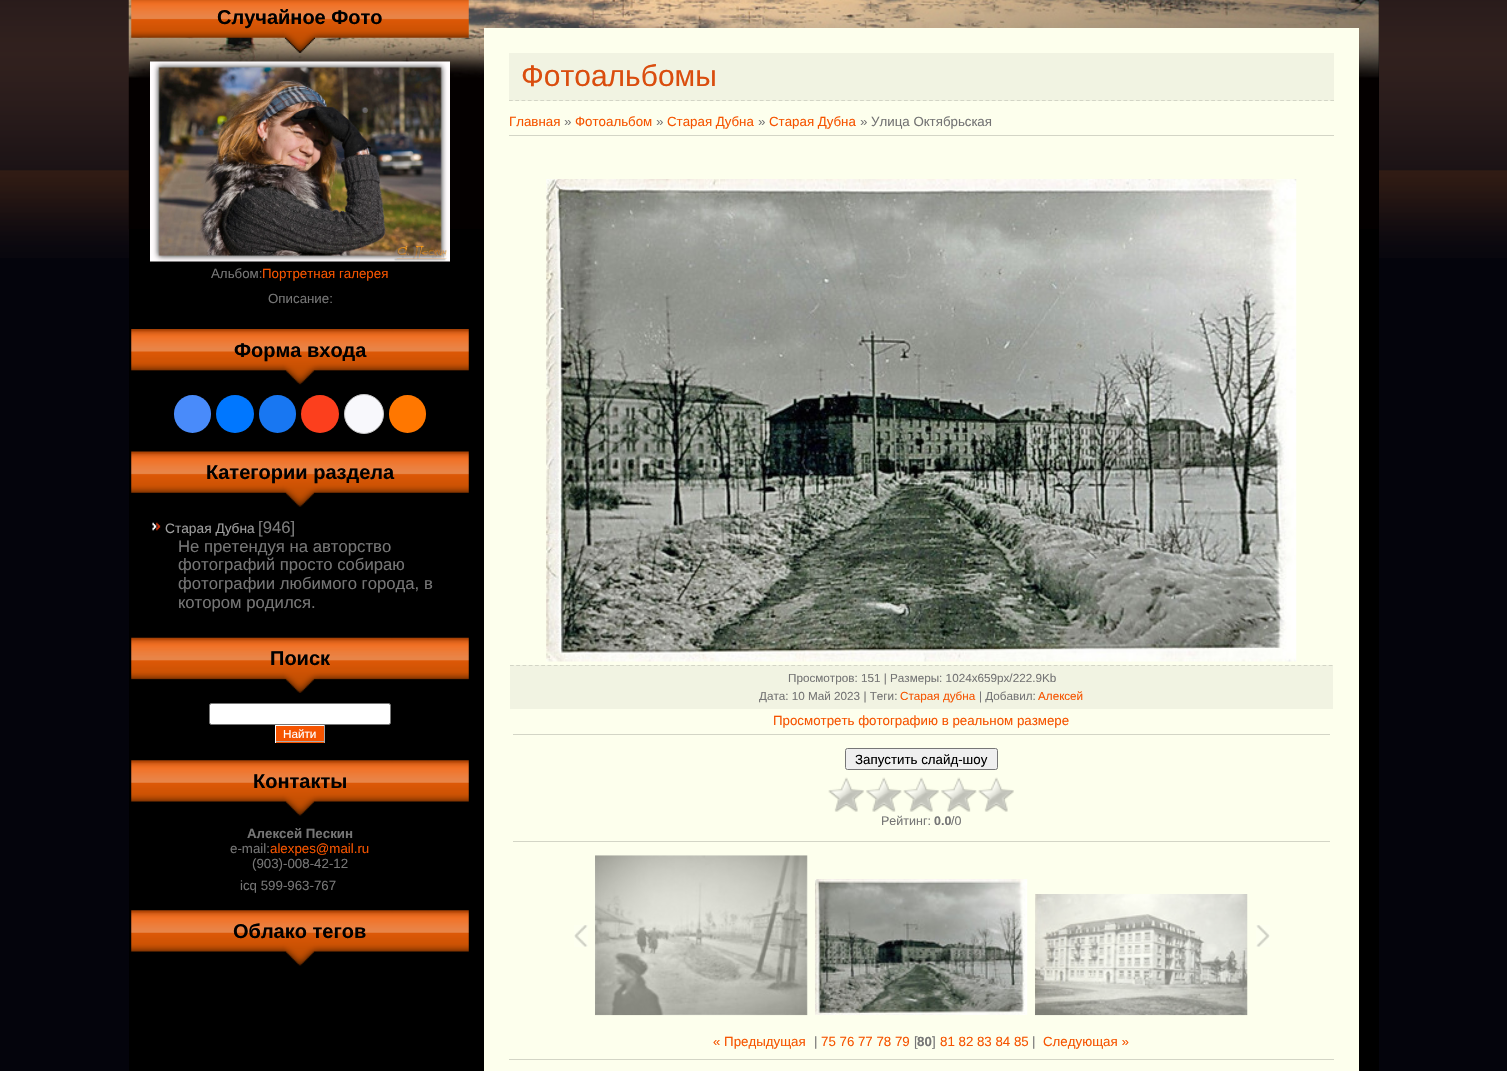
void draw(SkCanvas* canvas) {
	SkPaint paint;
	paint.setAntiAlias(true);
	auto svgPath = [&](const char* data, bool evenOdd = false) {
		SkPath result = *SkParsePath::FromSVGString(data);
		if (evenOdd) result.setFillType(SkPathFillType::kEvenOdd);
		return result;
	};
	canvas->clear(0xff04040c);
	canvas->drawImageRect(SkImages::DeferredFromEncodedData(SkData::MakeFromFileName("img1.png")), SkRect::MakeXYWH(0, 0, 1507, 258), SkSamplingOptions());
	paint.setColor(0xff000000);
	canvas->drawRect(SkRect::MakeXYWH(129, 0, 1250, 1071), paint);
	canvas->drawImageRect(SkImages::DeferredFromEncodedData(SkData::MakeFromFileName("img2.png")), SkRect::MakeXYWH(128, 0, 1251, 229), SkSamplingOptions());
	canvas->drawImageRect(SkImages::DeferredFromEncodedData(SkData::MakeFromFileName("img3.png")), SkRect::MakeXYWH(131, 0, 338, 53), SkSamplingOptions());
	SkFont f1(fontMgr->matchFamilyStyle("Liberation Sans", SkFontStyle::Bold()), 20);
	f1.setSubpixel(true);
	canvas->drawString("Случайное Фото", 217, 24, f1, paint);
	canvas->drawImageRect(SkImages::DeferredFromEncodedData(SkData::MakeFromFileName("img4.png")), SkRect::MakeXYWH(150, 61, 300, 201), SkSamplingOptions());
	SkFont f2(fontMgr->matchFamilyStyle("Liberation Sans", SkFontStyle::Normal()), 13.3);
	f2.setSubpixel(true);
	paint.setColor(0xff757575);
	canvas->drawString("Альбом:", 211, 278, f2, paint);
	paint.setColor(0xfff65400);
	canvas->drawString("Портретная галерея", 262, 278, f2, paint);
	paint.setColor(0xff757575);
	canvas->drawString("Описание:", 268, 303, f2, paint);
	canvas->drawImageRect(SkImages::DeferredFromEncodedData(SkData::MakeFromFileName("img5.png")), SkRect::MakeXYWH(131, 329, 338, 56), SkSamplingOptions());
	paint.setColor(0xff000000);
	canvas->drawString("Форма входа", 234, 357, f1, paint);
	paint.setColor(0xff498bfa);
	canvas->drawRoundRect(SkRect::MakeXYWH(174, 395, 37, 38), 18.5, 18.5, paint);
	paint.setColor(0xff0077ff);
	canvas->drawCircle(235, 414, 19, paint);
	paint.setColor(0xff1877f2);
	canvas->drawRoundRect(SkRect::MakeXYWH(259, 395, 37, 38), 18.5, 18.5, paint);
	paint.setColor(0xfffc3f1d);
	canvas->drawCircle(320, 414, 19, paint);
	paint.setColor(0xfff8f8fc);
	canvas->drawCircle(364, 414, 19.5, paint);
	paint.setStroke(true);
	paint.setStrokeWidth(1);
	paint.setColor(0xffc4c4c4);
	canvas->drawCircle(364, 414, 19.5, paint);
	paint.setStroke(false);
	paint.setColor(0xffff7700);
	canvas->drawRoundRect(SkRect::MakeXYWH(389, 395, 37, 38), 18.5, 18.5, paint);
	canvas->drawImageRect(SkImages::DeferredFromEncodedData(SkData::MakeFromFileName("img6.png")), SkRect::MakeXYWH(131, 451, 338, 56), SkSamplingOptions());
	paint.setColor(0xff000000);
	canvas->drawString("Категории раздела", 206, 479, f1, paint);
	canvas->drawImageRect(SkImages::DeferredFromEncodedData(SkData::MakeFromFileName("img7.png")), SkRect::MakeXYWH(152, 522, 9, 9), SkSamplingOptions());
	SkFont f3(fontMgr->matchFamilyStyle("Liberation Sans", SkFontStyle::Normal()), 13.75);
	f3.setSubpixel(true);
	paint.setColor(0xff9d9d9d);
	canvas->drawString("Старая Дубна", 165, 533, f3, paint);
	SkFont f4(fontMgr->matchFamilyStyle("Liberation Sans", SkFontStyle::Normal()), 16.7);
	f4.setSubpixel(true);
	paint.setColor(0xff7b7b7b);
	canvas->drawString("[946]", 258, 533, f4, paint);
	paint.setColor(0xff757575);
	canvas->drawString("Не претендуя на авторство", 178, 552, f4, paint);
	canvas->drawString("фотографий просто собираю", 178, 570, f4, paint);
	canvas->drawString("фотографии любимого города, в", 178, 589, f4, paint);
	canvas->drawString("котором родился.", 178, 608, f4, paint);
	canvas->drawImageRect(SkImages::DeferredFromEncodedData(SkData::MakeFromFileName("img8.png")), SkRect::MakeXYWH(131, 637, 338, 56), SkSamplingOptions());
	paint.setColor(0xff000000);
	canvas->drawString("Поиск", 270, 665, f1, paint);
	paint.setColor(0xffffffff);
	canvas->drawRoundRect(SkRect::MakeXYWH(209.5, 703.5, 181, 21), 2, 2, paint);
	paint.setStroke(true);
	paint.setColor(0xff767676);
	canvas->drawRoundRect(SkRect::MakeXYWH(209.5, 703.5, 181, 21), 2, 2, paint);
	paint.setStroke(false);
	paint.setColor(0xfff65400);
	canvas->drawRect(SkRect::MakeXYWH(276, 726, 48, 17), paint);
	paint.setColor(0xffffffff);
	canvas->drawRect(SkRect::MakeXYWH(275, 725, 50, 1), paint);
	paint.setColor(0xffaaaaaa);
	canvas->drawRect(SkRect::MakeXYWH(324, 725, 1, 18), paint);
	canvas->drawRect(SkRect::MakeXYWH(275, 741, 50, 1), paint);
	paint.setColor(0xffffffff);
	canvas->drawRect(SkRect::MakeXYWH(275, 725, 1, 18), paint);
	SkFont f5(fontMgr->matchFamilyStyle("Liberation Sans", SkFontStyle::Normal()), 11.7);
	f5.setSubpixel(true);
	canvas->drawString("Найти", 283, 738, f5, paint);
	canvas->drawImageRect(SkImages::DeferredFromEncodedData(SkData::MakeFromFileName("img9.png")), SkRect::MakeXYWH(131, 760, 338, 56), SkSamplingOptions());
	paint.setColor(0xff000000);
	canvas->drawString("Контакты", 253, 788, f1, paint);
	SkFont f6(fontMgr->matchFamilyStyle("Liberation Sans", SkFontStyle::Bold()), 13.3);
	f6.setSubpixel(true);
	paint.setColor(0xff757575);
	canvas->drawString("Алексей Пескин", 247, 838, f6, paint);
	canvas->drawString("e-mail:", 230, 853, f2, paint);
	paint.setColor(0xfff65400);
	canvas->drawString("alexpes@mail.ru", 270, 853, f2, paint);
	paint.setColor(0xff757575);
	canvas->drawString("(903)-008-42-12", 252, 868, f2, paint);
	canvas->drawString("icq 599-963-767", 240, 890, f2, paint);
	canvas->drawImageRect(SkImages::DeferredFromEncodedData(SkData::MakeFromFileName("img9.png")), SkRect::MakeXYWH(131, 910, 338, 56), SkSamplingOptions());
	paint.setColor(0xff000000);
	canvas->drawString("Облако тегов", 233, 938, f1, paint);
	paint.setColor(0xfffdffed);
	canvas->drawRect(SkRect::MakeXYWH(484, 28, 875, 1043), paint);
	paint.setColor(0xfff1f3e2);
	canvas->drawRect(SkRect::MakeXYWH(509, 53, 825, 48), paint);
	paint.setStroke(true);
	paint.setStrokeWidth(1.2);
	paint.setColor(0xffd3d5c6);
	paint.setPathEffect(SkDashPathEffect::Make({{3.75f, 2.52f}}, 0));
	canvas->drawPath(svgPath("M509 100.5H1334"), paint);
	paint.setPathEffect(nullptr);
	SkFont f7(fontMgr->matchFamilyStyle("Liberation Sans", SkFontStyle::Normal()), 30);
	f7.setSubpixel(true);
	paint.setStroke(false);
	paint.setColor(0xffda4d0e);
	canvas->drawString("Фотоальбомы", 521, 86, f7, paint);
	paint.setColor(0xfff65400);
	canvas->drawString("Главная", 509, 126, f2, paint);
	paint.setColor(0xff757575);
	canvas->drawString("»", 564, 126, f2, paint);
	paint.setColor(0xfff65400);
	canvas->drawString("Фотоальбом", 575, 126, f2, paint);
	paint.setColor(0xff757575);
	canvas->drawString("»", 656, 126, f2, paint);
	paint.setColor(0xfff65400);
	canvas->drawString("Старая Дубна", 667, 126, f2, paint);
	paint.setColor(0xff757575);
	canvas->drawString("»", 758, 126, f2, paint);
	paint.setColor(0xfff65400);
	canvas->drawString("Старая Дубна", 769, 126, f2, paint);
	paint.setColor(0xff757575);
	canvas->drawString("» Улица Октябрьская", 860, 126, f2, paint);
	paint.setColor(0xffd3d5c6);
	canvas->drawRect(SkRect::MakeXYWH(509, 135, 825, 1), paint);
	canvas->drawImageRect(SkImages::DeferredFromEncodedData(SkData::MakeFromFileName("img10.png")), SkRect::MakeXYWH(546, 179, 751, 483), SkSamplingOptions());
	paint.setColor(0xfff1f3e2);
	canvas->drawRect(SkRect::MakeXYWH(510, 665, 823, 44), paint);
	paint.setStroke(true);
	paint.setColor(0xffd3d5c6);
	paint.setPathEffect(SkDashPathEffect::Make({{3.75f, 2.5f}}, 0));
	canvas->drawPath(svgPath("M510 665.5H1332.5"), paint);
	paint.setPathEffect(nullptr);
	paint.setStroke(false);
	paint.setColor(0xff757575);
	canvas->drawString("Просмотров: 151 | Размеры: 1024x659px/222.9Kb", 788, 682, f5, paint);
	canvas->drawString("Дата: 10 Май 2023 | Теги:", 759, 700, f5, paint);
	paint.setColor(0xfff65400);
	canvas->drawString("Старая дубна", 900, 700, f5, paint);
	paint.setColor(0xff757575);
	canvas->drawString("| Добавил:", 979, 700, f5, paint);
	paint.setColor(0xfff65400);
	canvas->drawString("Алексей", 1038, 700, f5, paint);
	canvas->drawString("Просмотреть фотографию в реальном размере", 773, 725, f2, paint);
	paint.setColor(0xffd3d5c6);
	canvas->drawRect(SkRect::MakeXYWH(513, 734, 817, 1), paint);
	paint.setColor(0xffefefef);
	canvas->drawRoundRect(SkRect::MakeXYWH(845.5, 748.5, 152, 21), 2, 2, paint);
	paint.setStroke(true);
	paint.setStrokeWidth(1);
	paint.setColor(0xff767676);
	canvas->drawRoundRect(SkRect::MakeXYWH(845.5, 748.5, 152, 21), 2, 2, paint);
	paint.setStroke(false);
	paint.setColor(0xff000000);
	canvas->drawString("Запустить слайд-шоу", 855, 764, f2, paint);
	canvas->drawImageRect(SkImages::DeferredFromEncodedData(SkData::MakeFromFileName("img11.png")), SkRect::MakeXYWH(828, 777, 186, 35), SkSamplingOptions());
	SkFont f8(fontMgr->matchFamilyStyle("Liberation Sans", SkFontStyle::Normal()), 12.5);
	f8.setSubpixel(true);
	paint.setColor(0xff757575);
	canvas->drawString("Рейтинг:", 881, 825, f8, paint);
	SkFont f9(fontMgr->matchFamilyStyle("Liberation Sans", SkFontStyle::Bold()), 12.5);
	f9.setSubpixel(true);
	canvas->drawString("0.0", 934, 825, f9, paint);
	canvas->drawString("/0", 951, 825, f8, paint);
	paint.setColor(0xffd3d5c6);
	canvas->drawRect(SkRect::MakeXYWH(513, 841, 817, 1), paint);
	canvas->drawImageRect(SkImages::DeferredFromEncodedData(SkData::MakeFromFileName("img12.png")), SkRect::MakeXYWH(574, 925, 14, 22), SkSamplingOptions());
	canvas->drawImageRect(SkImages::DeferredFromEncodedData(SkData::MakeFromFileName("img13.png")), SkRect::MakeXYWH(595, 855, 213, 161), SkSamplingOptions());
	canvas->drawImageRect(SkImages::DeferredFromEncodedData(SkData::MakeFromFileName("img14.png")), SkRect::MakeXYWH(815, 879, 213, 136), SkSamplingOptions());
	canvas->drawImageRect(SkImages::DeferredFromEncodedData(SkData::MakeFromFileName("img15.png")), SkRect::MakeXYWH(1035, 894, 213, 122), SkSamplingOptions());
	canvas->drawImageRect(SkImages::DeferredFromEncodedData(SkData::MakeFromFileName("img16.png")), SkRect::MakeXYWH(1256, 925, 14, 22), SkSamplingOptions());
	paint.setColor(0xfff65400);
	canvas->drawString("« Предыдущая", 713, 1046, f2, paint);
	paint.setColor(0xff757575);
	canvas->drawString("|", 814, 1046, f2, paint);
	paint.setColor(0xfff65400);
	canvas->drawString("75 76 77 78 79", 821, 1046, f2, paint);
	paint.setColor(0xff757575);
	canvas->drawString("[", 914, 1046, f2, paint);
	canvas->drawString("80", 917, 1046, f6, paint);
	canvas->drawString("]", 932, 1046, f2, paint);
	paint.setColor(0xfff65400);
	canvas->drawString("81 82 83 84 85", 940, 1046, f2, paint);
	paint.setColor(0xff757575);
	canvas->drawString("|", 1032, 1046, f2, paint);
	paint.setColor(0xfff65400);
	canvas->drawString("Следующая »", 1043, 1046, f2, paint);
	paint.setColor(0xffd3d5c6);
	canvas->drawRect(SkRect::MakeXYWH(509, 1059, 825, 1), paint);
}
